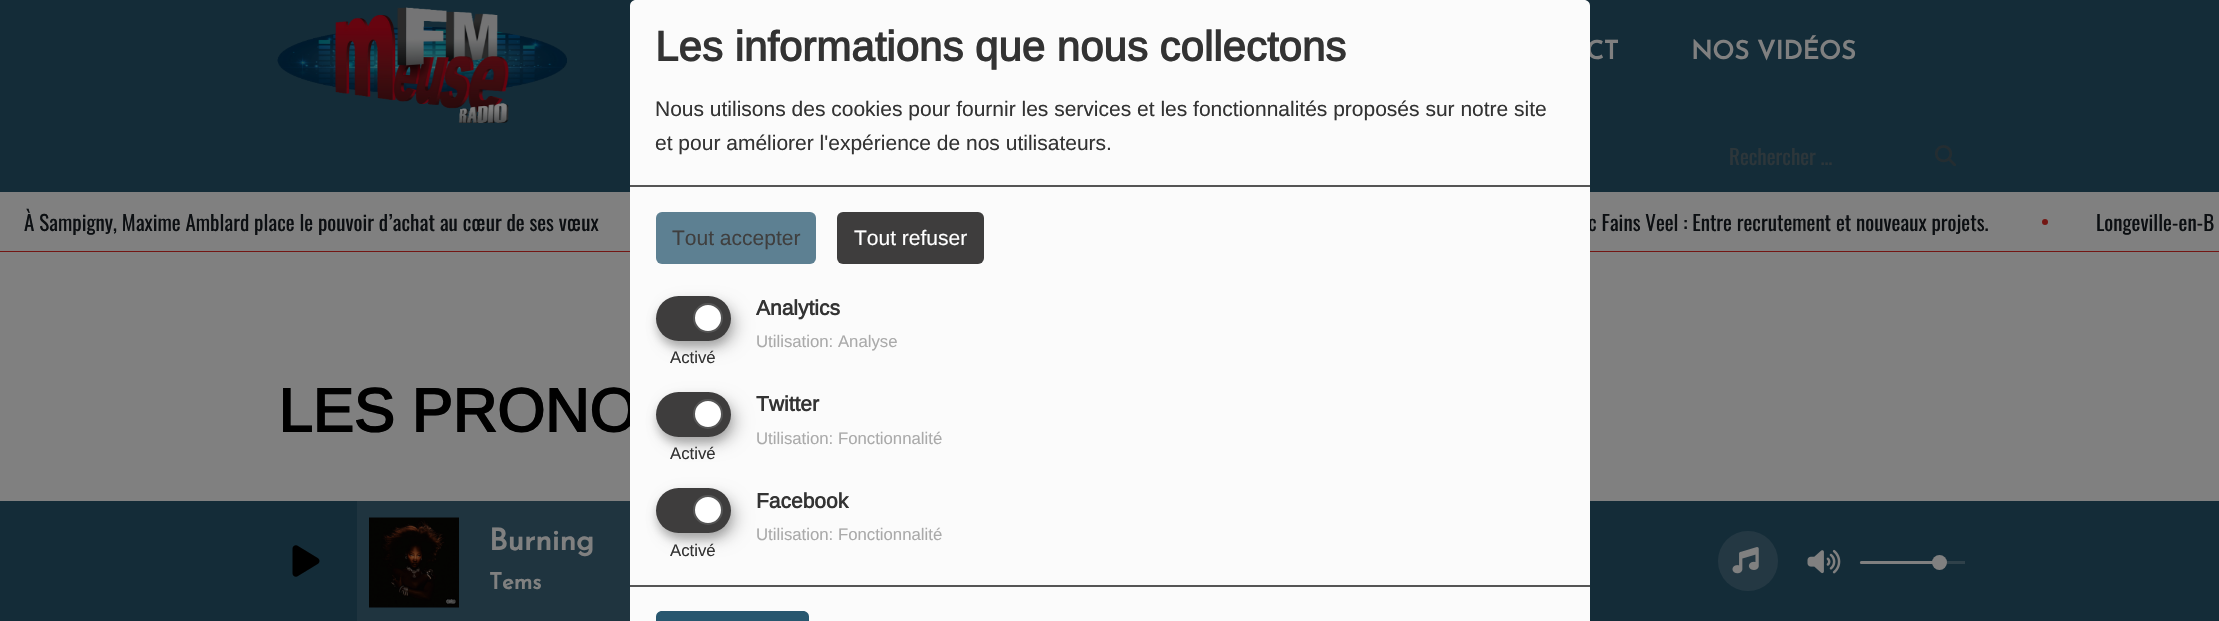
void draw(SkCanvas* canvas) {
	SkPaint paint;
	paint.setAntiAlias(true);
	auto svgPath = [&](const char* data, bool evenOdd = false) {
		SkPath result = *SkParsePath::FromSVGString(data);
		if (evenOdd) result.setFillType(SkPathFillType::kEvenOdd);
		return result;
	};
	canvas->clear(0xff808080);
	paint.setColor(0xff142c38);
	canvas->drawRect(SkRect::MakeXYWH(0, 0, 2219, 192), paint);
	paint.setColor(0xff731613);
	canvas->drawRect(SkRect::MakeXYWH(0, 251, 2219, 1), paint);
	paint.setColor(0xff142c38);
	canvas->drawRect(SkRect::MakeXYWH(0, 501, 2219, 120), paint);
	paint.setColor(0xff1f343f);
	canvas->drawRect(SkRect::MakeXYWH(357, 501, 273, 120), paint);
	canvas->save();
	canvas->clipRect(SkRect::MakeXYWH(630, 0, 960, 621));
	paint.setColor(0x30000000);
	paint.setMaskFilter(SkMaskFilter::MakeBlur(kNormal_SkBlurStyle, 7.5));
	canvas->drawRoundRect(SkRect::MakeXYWH(638, 8, 960, 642), 6, 6, paint);
	paint.setMaskFilter(nullptr);
	canvas->restore();
	SkFont f1(fontMgr->matchFamilyStyle("Josefin Sans", SkFontStyle::Bold()), 25.5);
	f1.setSubpixel(true);
	paint.setColor(0xff808080);
	canvas->drawString("CT", 1586, 59, f1, paint);
	SkFont f2(fontMgr->matchFamilyStyle("Oswald", SkFontStyle::Normal()), 21);
	f2.setSubpixel(true);
	paint.setColor(0xff0c0f12);
	canvas->drawString("c Fains Veel : Entre recrutement et nouveaux projets.", 1588, 231, f2, paint);
	SkFont f3(fontMgr->matchFamilyStyle("Arimo", SkFontStyle::Bold()), 61.5);
	f3.setSubpixel(true);
	paint.setColor(0xff000000);
	canvas->drawString("LES PRONO", 278, 432, f3, paint);
	paint.setColor(0xfffbfbfb);
	canvas->drawPath(svgPath("M636 0H1584C1587.5 0 1590 2.5 1590 6V621H630V6C630 2.5 632.5 0 636 0Z"), paint);
	paint.setColor(0xff555555);
	canvas->drawRect(SkRect::MakeXYWH(630, 185, 960, 2), paint);
	SkFont f4(fontMgr->matchFamilyStyle("Arimo", SkFontStyle::Bold()), 42);
	f4.setSubpixel(true);
	paint.setColor(0xff333333);
	canvas->drawString("Les informations que nous collectons", 655, 61, f4, paint);
	SkFont f5(fontMgr->matchFamilyStyle("Arimo", SkFontStyle::Normal()), 21);
	f5.setSubpixel(true);
	canvas->drawString("Nous utilisons des cookies pour fournir les services et les fonctionnalités proposés sur notre site", 655, 116, f5, paint);
	canvas->drawString("et pour améliorer l'expérience de nos utilisateurs.", 655, 150, f5, paint);
	paint.setColor(0xff5d8092);
	canvas->drawRoundRect(SkRect::MakeXYWH(656, 212, 160, 52), 6, 6, paint);
	paint.setColor(0xff3f3f3f);
	canvas->drawString("Tout accepter", 672, 245, f5, paint);
	paint.setColor(0xff3e3d3d);
	canvas->drawRoundRect(SkRect::MakeXYWH(837, 212, 147, 52), 6, 6, paint);
	paint.setColor(0xffffffff);
	canvas->drawString("Tout refuser", 854, 245, f5, paint);
	SkFont f6(fontMgr->matchFamilyStyle("Arimo", SkFontStyle::Bold()), 21);
	f6.setSubpixel(true);
	paint.setColor(0xff333333);
	canvas->drawString("Analytics", 756, 315, f6, paint);
	paint.setColor(0x30000000);
	paint.setMaskFilter(SkMaskFilter::MakeBlur(kNormal_SkBlurStyle, 7.5));
	canvas->drawRoundRect(SkRect::MakeXYWH(663, 303, 75, 45), 22.5, 22.5, paint);
	paint.setMaskFilter(nullptr);
	paint.setColor(0x33000000);
	paint.setMaskFilter(SkMaskFilter::MakeBlur(kNormal_SkBlurStyle, 4.5));
	canvas->drawRoundRect(SkRect::MakeXYWH(656, 302, 75, 45), 22.5, 22.5, paint);
	paint.setMaskFilter(nullptr);
	paint.setColor(0xff3e3d3d);
	canvas->drawRoundRect(SkRect::MakeXYWH(656, 296, 75, 45), 22.5, 22.5, paint);
	paint.setColor(0xffffffff);
	canvas->drawCircle(708, 318, 14, paint);
	paint.setStroke(true);
	paint.setStrokeWidth(2);
	paint.setColor(0xff555555);
	canvas->drawCircle(708, 318, 14, paint);
	SkFont f7(fontMgr->matchFamilyStyle("Arimo", SkFontStyle::Normal()), 16.75);
	f7.setSubpixel(true);
	paint.setStroke(false);
	paint.setColor(0xff333333);
	canvas->drawString("Activé", 670, 363, f7, paint);
	paint.setColor(0xffaaaaaa);
	canvas->drawString("Utilisation: Analyse", 756, 347, f7, paint);
	paint.setColor(0xff333333);
	canvas->drawString("Twitter", 756, 411, f6, paint);
	paint.setColor(0x30000000);
	paint.setMaskFilter(SkMaskFilter::MakeBlur(kNormal_SkBlurStyle, 7.5));
	canvas->drawRoundRect(SkRect::MakeXYWH(663, 399, 75, 45), 22.5, 22.5, paint);
	paint.setMaskFilter(nullptr);
	paint.setColor(0x33000000);
	paint.setMaskFilter(SkMaskFilter::MakeBlur(kNormal_SkBlurStyle, 4.5));
	canvas->drawRoundRect(SkRect::MakeXYWH(656, 398, 75, 45), 22.5, 22.5, paint);
	paint.setMaskFilter(nullptr);
	paint.setColor(0xff3e3d3d);
	canvas->drawRoundRect(SkRect::MakeXYWH(656, 392, 75, 45), 22.5, 22.5, paint);
	paint.setColor(0xffffffff);
	canvas->drawCircle(708, 414, 14, paint);
	paint.setStroke(true);
	paint.setColor(0xff555555);
	canvas->drawCircle(708, 414, 14, paint);
	paint.setStroke(false);
	paint.setColor(0xff333333);
	canvas->drawString("Activé", 670, 459, f7, paint);
	paint.setColor(0xffaaaaaa);
	canvas->drawString("Utilisation: Fonctionnalité", 756, 444, f7, paint);
	paint.setColor(0xff333333);
	canvas->drawString("Facebook", 756, 508, f6, paint);
	paint.setColor(0x30000000);
	paint.setMaskFilter(SkMaskFilter::MakeBlur(kNormal_SkBlurStyle, 7.5));
	canvas->drawRoundRect(SkRect::MakeXYWH(663, 495, 75, 45), 22.5, 22.5, paint);
	paint.setMaskFilter(nullptr);
	paint.setColor(0x33000000);
	paint.setMaskFilter(SkMaskFilter::MakeBlur(kNormal_SkBlurStyle, 4.5));
	canvas->drawRoundRect(SkRect::MakeXYWH(656, 494, 75, 45), 22.5, 22.5, paint);
	paint.setMaskFilter(nullptr);
	paint.setColor(0xff3e3d3d);
	canvas->drawRoundRect(SkRect::MakeXYWH(656, 488, 75, 45), 22.5, 22.5, paint);
	paint.setColor(0xffffffff);
	canvas->drawCircle(708, 510, 14, paint);
	paint.setStroke(true);
	paint.setColor(0xff555555);
	canvas->drawCircle(708, 510, 14, paint);
	paint.setStroke(false);
	paint.setColor(0xff333333);
	canvas->drawString("Activé", 670, 556, f7, paint);
	paint.setColor(0xffaaaaaa);
	canvas->drawString("Utilisation: Fonctionnalité", 756, 540, f7, paint);
	paint.setColor(0xff555555);
	canvas->drawRect(SkRect::MakeXYWH(630, 585, 960, 2), paint);
	paint.setColor(0xff28576f);
	canvas->drawPath(svgPath("M662 611H803C806.5 611 809 613.5 809 617V621H656V617C656 613.5 658.5 611 662 611Z"), paint);
	canvas->drawImageRect(SkImages::DeferredFromEncodedData(SkData::MakeFromFileName("img1.png")), SkRect::MakeXYWH(277, 7, 290, 116), SkSamplingOptions());
	paint.setColor(0xff808080);
	canvas->drawString("NOS VIDÉOS", 1691, 59, f1, paint);
	paint.setColor(0xff2d363a);
	canvas->drawString("Rechercher …", 1729, 165, f2, paint);
	canvas->drawImageRect(SkImages::DeferredFromEncodedData(SkData::MakeFromFileName("img2.png")), SkRect::MakeXYWH(1935, 145, 21, 21), SkSamplingOptions());
	paint.setColor(0xff0c0f12);
	canvas->drawString("À Sampigny, Maxime Amblard place le pouvoir d’achat au cœur de ses vœux", 24, 231, f2, paint);
	paint.setColor(0xff731613);
	canvas->drawCircle(2045, 222, 3, paint);
	paint.setColor(0xff0c0f12);
	canvas->drawString("Longeville-en-B", 2096, 231, f2, paint);
	canvas->drawImageRect(SkImages::DeferredFromEncodedData(SkData::MakeFromFileName("img3.png")), SkRect::MakeXYWH(292, 545, 28, 32), SkSamplingOptions());
	canvas->drawImageRect(SkImages::DeferredFromEncodedData(SkData::MakeFromFileName("img4.png")), SkRect::MakeXYWH(369, 517, 90, 91), SkSamplingOptions());
	SkFont f8(fontMgr->matchFamilyStyle("Josefin Sans", SkFontStyle::Bold()), 30);
	f8.setSubpixel(true);
	paint.setColor(0xff808080);
	canvas->drawString("Burning", 489, 550, f8, paint);
	SkFont f9(fontMgr->matchFamilyStyle("Josefin Sans", SkFontStyle::Bold()), 22.5);
	f9.setSubpixel(true);
	canvas->drawString("Tems", 489, 589, f9, paint);
	paint.setColor(0xff243843);
	canvas->drawCircle(1748, 561, 30, paint);
	canvas->drawImageRect(SkImages::DeferredFromEncodedData(SkData::MakeFromFileName("img5.png")), SkRect::MakeXYWH(1732, 547, 27, 27), SkSamplingOptions());
	canvas->drawImageRect(SkImages::DeferredFromEncodedData(SkData::MakeFromFileName("img6.png")), SkRect::MakeXYWH(1807, 549, 34, 25), SkSamplingOptions());
	paint.setColor(0xff2f414a);
	canvas->drawRect(SkRect::MakeXYWH(1860, 561, 105, 3), paint);
	paint.setColor(0xff808080);
	canvas->drawRoundRect(SkRect::MakeXYWH(1860, 561, 80, 3), 1.5, 1.5, paint);
	canvas->drawCircle(1939.5, 562.5, 7.5, paint);
}
